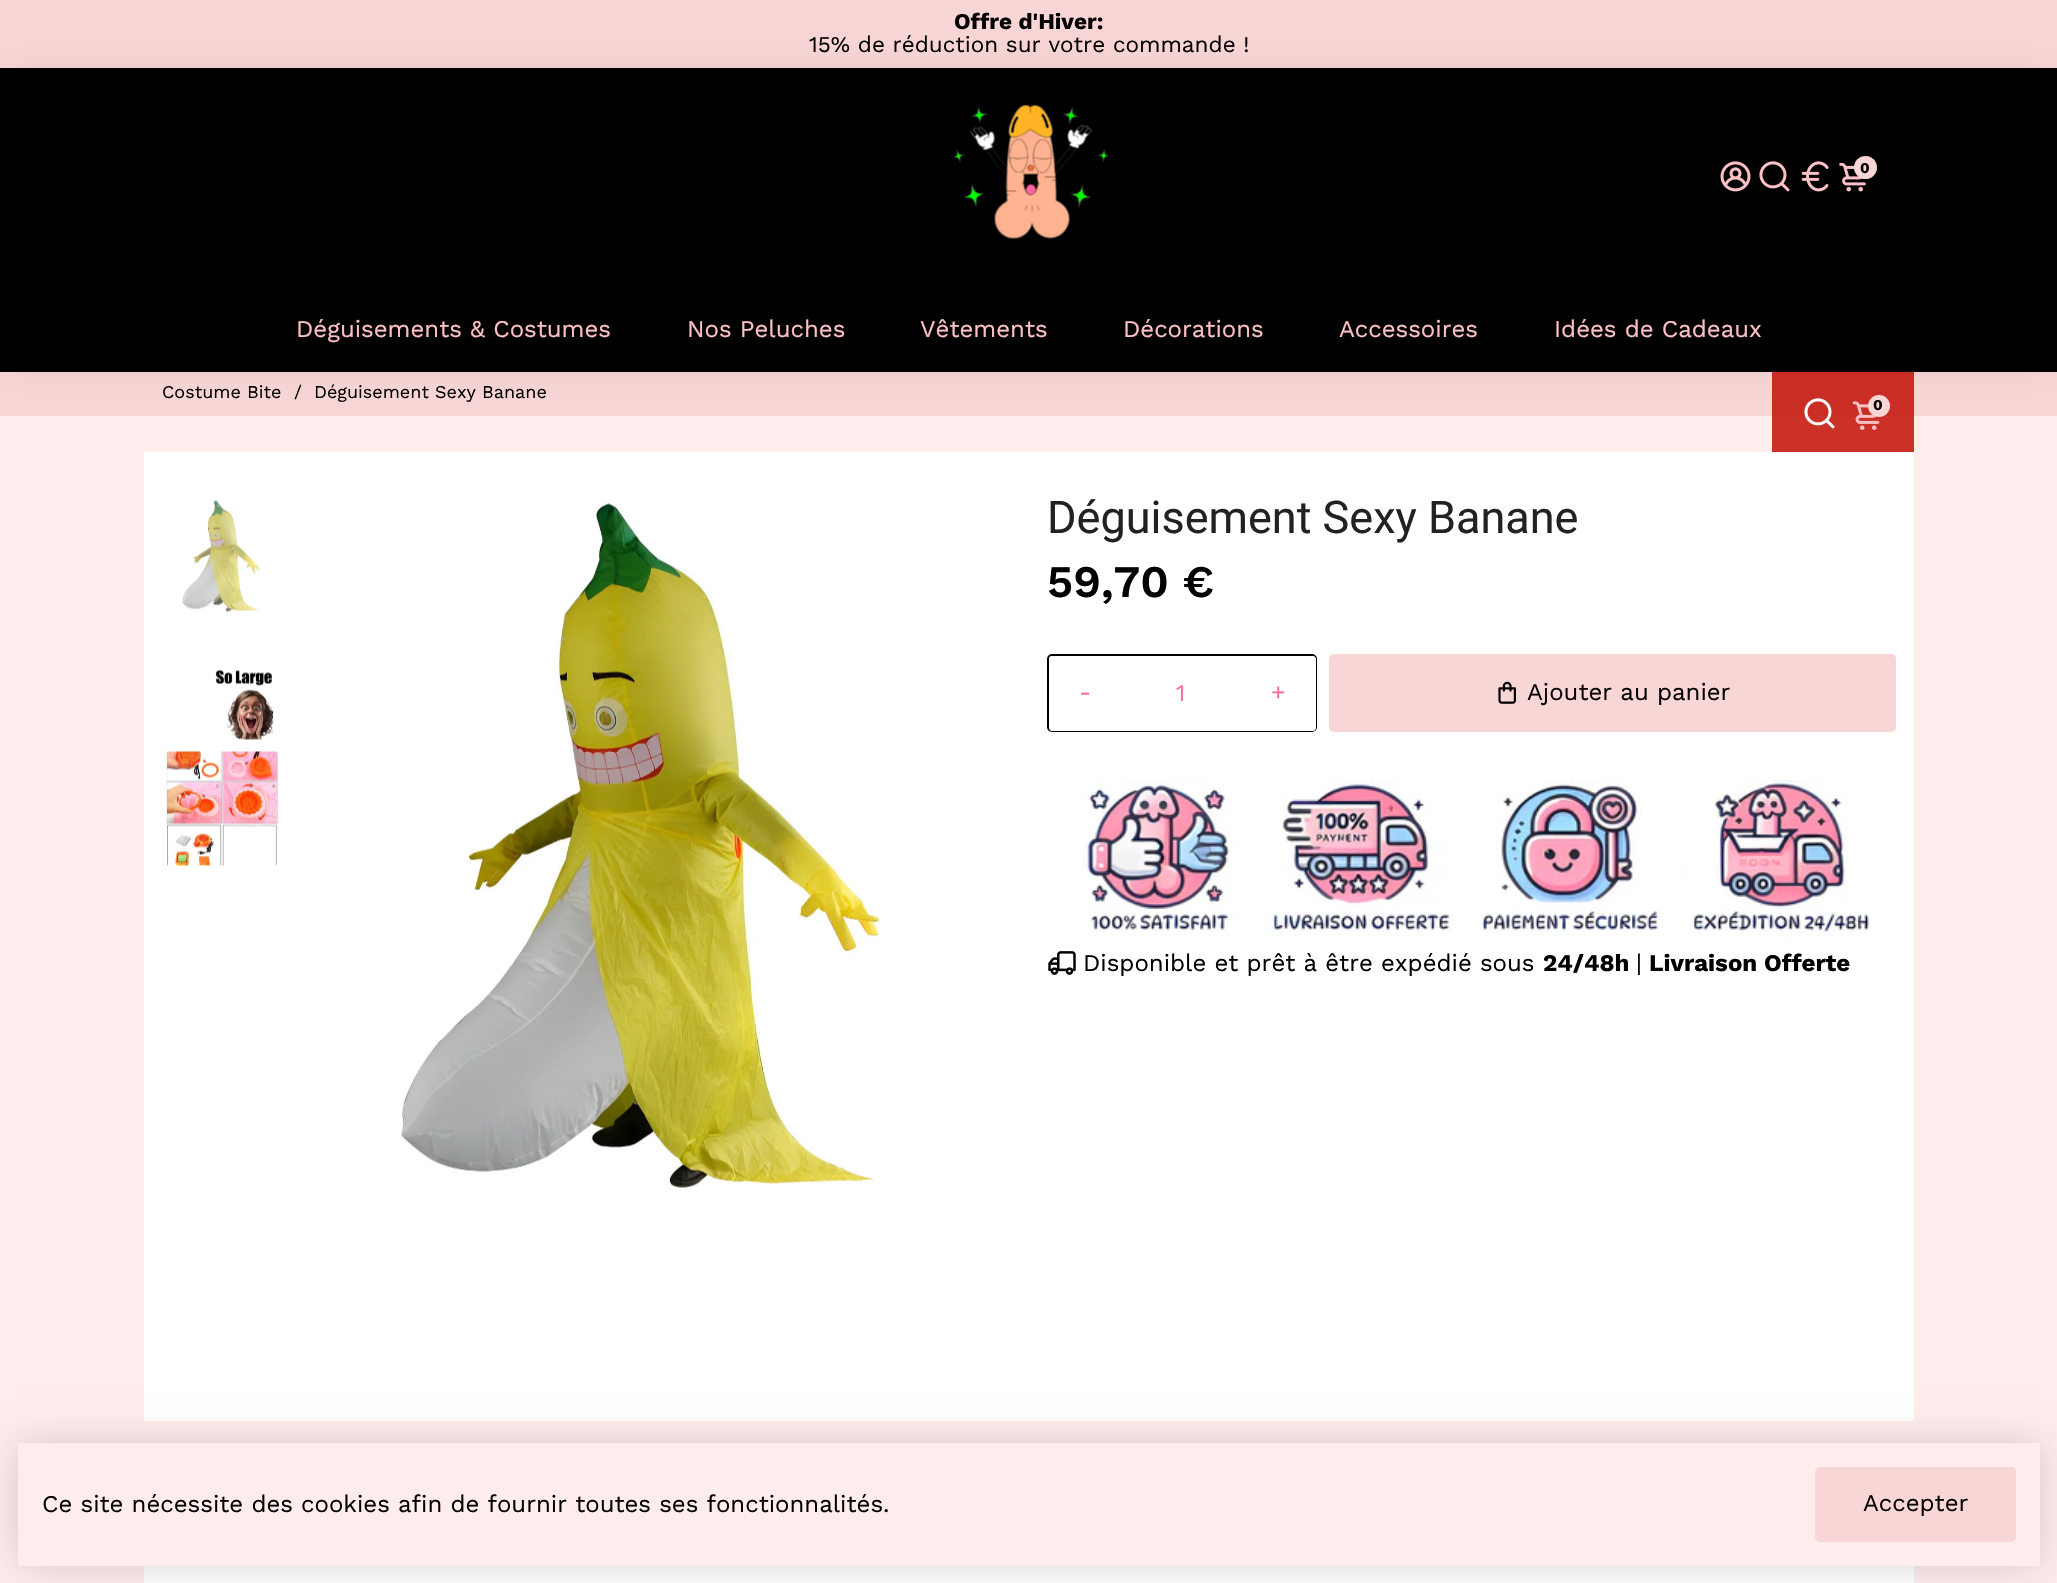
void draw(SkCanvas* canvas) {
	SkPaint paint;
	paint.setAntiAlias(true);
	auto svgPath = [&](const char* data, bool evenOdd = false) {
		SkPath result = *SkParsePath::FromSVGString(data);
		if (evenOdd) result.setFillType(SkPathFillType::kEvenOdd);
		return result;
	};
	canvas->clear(0xffffedee);
	paint.setColor(0xfff9d6d6);
	canvas->drawRect(SkRect::MakeXYWH(0, 0, 2057, 68), paint);
	SkFont f1(fontMgr->matchFamilyStyle("Work Sans", SkFontStyle::Bold()), 22.5);
	f1.setSubpixel(true);
	paint.setColor(0xff020001);
	canvas->drawString("Offre d'Hiver:", 954, 29, f1, paint);
	SkFont f2(fontMgr->matchFamilyStyle("Work Sans", SkFontStyle::Normal()), 22.5);
	f2.setSubpixel(true);
	canvas->drawString("15% de réduction sur votre commande !", 809, 52, f2, paint);
	paint.setColor(0xfff9d6d6);
	canvas->drawRect(SkRect::MakeXYWH(0, 372, 2057, 44), paint);
	paint.setColor(0x0f000000);
	paint.setMaskFilter(SkMaskFilter::MakeBlur(kNormal_SkBlurStyle, 15));
	canvas->drawRect(SkRect::MakeXYWH(0, 68, 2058, 304), paint);
	paint.setMaskFilter(nullptr);
	paint.setColor(0xff000000);
	canvas->drawRect(SkRect::MakeXYWH(0, 68, 2057, 304), paint);
	canvas->drawImageRect(SkImages::DeferredFromEncodedData(SkData::MakeFromFileName("img1.png")), SkRect::MakeXYWH(953, 104, 157, 136), SkSamplingOptions());
	canvas->drawImageRect(SkImages::DeferredFromEncodedData(SkData::MakeFromFileName("img2.png")), SkRect::MakeXYWH(1720, 161, 31, 31), SkSamplingOptions());
	canvas->drawImageRect(SkImages::DeferredFromEncodedData(SkData::MakeFromFileName("img3.png")), SkRect::MakeXYWH(1759, 161, 31, 31), SkSamplingOptions());
	canvas->drawImageRect(SkImages::DeferredFromEncodedData(SkData::MakeFromFileName("img4.png")), SkRect::MakeXYWH(1801, 161, 28, 31), SkSamplingOptions());
	canvas->drawImageRect(SkImages::DeferredFromEncodedData(SkData::MakeFromFileName("img5.png")), SkRect::MakeXYWH(1839, 162, 27, 30), SkSamplingOptions());
	paint.setColor(0xfff9d6d6);
	canvas->drawCircle(1865.5, 167.5, 11.5, paint);
	SkFont f3(fontMgr->matchFamilyStyle("Work Sans", SkFontStyle::Bold()), 15);
	f3.setSubpixel(true);
	paint.setColor(0xff020001);
	canvas->drawString("0", 1860, 173, f3, paint);
	SkFont f4(fontMgr->matchFamilyStyle("Work Sans", SkFontStyle::Normal()), 24);
	f4.setSubpixel(true);
	paint.setColor(0xfffdc1c5);
	canvas->drawString("Déguisements & Costumes", 296, 337, f4, paint);
	canvas->drawString("Nos Peluches", 687, 337, f4, paint);
	canvas->drawString("Vêtements", 920, 337, f4, paint);
	canvas->drawString("Décorations", 1123, 337, f4, paint);
	canvas->drawString("Accessoires", 1339, 337, f4, paint);
	canvas->drawString("Idées de Cadeaux", 1554, 337, f4, paint);
	paint.setColor(0xd9c20f03);
	canvas->drawRect(SkRect::MakeXYWH(1772, 372, 142, 80), paint);
	canvas->drawImageRect(SkImages::DeferredFromEncodedData(SkData::MakeFromFileName("img6.png")), SkRect::MakeXYWH(1804, 398, 31, 31), SkSamplingOptions());
	canvas->drawImageRect(SkImages::DeferredFromEncodedData(SkData::MakeFromFileName("img7.png")), SkRect::MakeXYWH(1852, 401, 28, 29), SkSamplingOptions());
	paint.setColor(0xfff9d6d6);
	canvas->drawCircle(1879, 406, 11, paint);
	paint.setColor(0xff020001);
	canvas->drawString("0", 1873, 410, f3, paint);
	SkFont f5(fontMgr->matchFamilyStyle("Work Sans", SkFontStyle::Normal()), 18);
	f5.setSubpixel(true);
	canvas->drawString("Costume Bite", 162, 398, f5, paint);
	canvas->drawString("/", 294, 398, f5, paint);
	canvas->drawString("Déguisement Sexy Banane", 314, 398, f5, paint);
	paint.setColor(0xffffffff);
	canvas->drawRect(SkRect::MakeXYWH(144, 452, 1770, 969), paint);
	canvas->drawImageRect(SkImages::DeferredFromEncodedData(SkData::MakeFromFileName("img8.png")), SkRect::MakeXYWH(182, 500, 78, 112), SkSamplingOptions());
	canvas->drawImageRect(SkImages::DeferredFromEncodedData(SkData::MakeFromFileName("img9.png")), SkRect::MakeXYWH(215, 670, 59, 70), SkSamplingOptions());
	canvas->drawImageRect(SkImages::DeferredFromEncodedData(SkData::MakeFromFileName("img10.png")), SkRect::MakeXYWH(165, 751, 114, 115), SkSamplingOptions());
	canvas->drawImageRect(SkImages::DeferredFromEncodedData(SkData::MakeFromFileName("img11.png")), SkRect::MakeXYWH(401, 503, 479, 686), SkSamplingOptions());
	SkFont f6(fontMgr->matchFamilyStyle("Roboto", SkFontStyle::Normal()), 45);
	f6.setSubpixel(true);
	paint.setColor(0xff222222);
	canvas->drawString("Déguisement Sexy Banane", 1047, 533, f6, paint);
	SkFont f7(fontMgr->matchFamilyStyle("Work Sans", SkFontStyle(600, SkFontStyle::kNormal_Width, SkFontStyle::kUpright_Slant)), 45);
	f7.setSubpixel(true);
	paint.setColor(0xff020001);
	canvas->drawString("59,70 €", 1047, 597, f7, paint);
	paint.setStroke(true);
	paint.setStrokeWidth(2);
	paint.setColor(0xff000000);
	canvas->drawRoundRect(SkRect::MakeXYWH(1048, 655, 268, 76), 4, 4, paint);
	paint.setStroke(false);
	paint.setColor(0xffffffff);
	canvas->drawPath(svgPath("M1052 656H1121V731H1052C1050.5 731 1049 729.5 1049 728V659C1049 657.5 1050.5 656 1052 656Z"), paint);
	paint.setColor(0xfffd6c9e);
	canvas->drawString("-", 1079, 700, f4, paint);
	paint.setColor(0xffffffff);
	canvas->drawRect(SkRect::MakeXYWH(1121, 730, 120, 1), paint);
	paint.setColor(0xfffd6c9e);
	canvas->drawString("1", 1176, 701, f4, paint);
	paint.setColor(0xffffffff);
	canvas->drawPath(svgPath("M1241 656H1313C1314.5 656 1316 657.5 1316 659V728C1316 729.5 1314.5 731 1313 731H1241Z"), paint);
	paint.setColor(0xfffd6c9e);
	canvas->drawString("+", 1271, 700, f4, paint);
	paint.setColor(0xfff9d6d6);
	canvas->drawRoundRect(SkRect::MakeXYWH(1329, 654, 567, 78), 5, 5, paint);
	canvas->drawImageRect(SkImages::DeferredFromEncodedData(SkData::MakeFromFileName("img12.png")), SkRect::MakeXYWH(1498, 681, 18, 23), SkSamplingOptions());
	paint.setColor(0xff020001);
	canvas->drawString("Ajouter au panier", 1527, 700, f4, paint);
	canvas->drawImageRect(SkImages::DeferredFromEncodedData(SkData::MakeFromFileName("img13.png")), SkRect::MakeXYWH(1084, 780, 788, 158), SkSamplingOptions());
	canvas->drawImageRect(SkImages::DeferredFromEncodedData(SkData::MakeFromFileName("img14.png")), SkRect::MakeXYWH(1048, 951, 28, 24), SkSamplingOptions());
	canvas->drawString("Disponible et prêt à être expédié sous", 1083, 971, f4, paint);
	SkFont f8(fontMgr->matchFamilyStyle("Work Sans", SkFontStyle::Bold()), 24);
	f8.setSubpixel(true);
	canvas->drawString("24/48h", 1543, 971, f8, paint);
	canvas->drawString("|", 1636, 971, f4, paint);
	canvas->drawString("Livraison Offerte", 1649, 971, f8, paint);
	paint.setColor(0xffffffff);
	canvas->drawRect(SkRect::MakeXYWH(144, 1566, 1770, 17), paint);
	paint.setColor(0x29000000);
	paint.setMaskFilter(SkMaskFilter::MakeBlur(kNormal_SkBlurStyle, 18));
	canvas->drawRect(SkRect::MakeXYWH(18, 1443, 2022, 123), paint);
	paint.setMaskFilter(nullptr);
	paint.setColor(0xffffedee);
	canvas->drawRect(SkRect::MakeXYWH(18, 1443, 2022, 123), paint);
	paint.setColor(0xff020001);
	canvas->drawString("Ce site nécessite des cookies afin de fournir toutes ses fonctionnalités.", 42, 1512, f4, paint);
	paint.setColor(0xfff9d6d6);
	canvas->drawRoundRect(SkRect::MakeXYWH(1815, 1467, 201, 75), 5, 5, paint);
	paint.setColor(0xff020001);
	canvas->drawString("Accepter", 1863, 1511, f4, paint);
}
